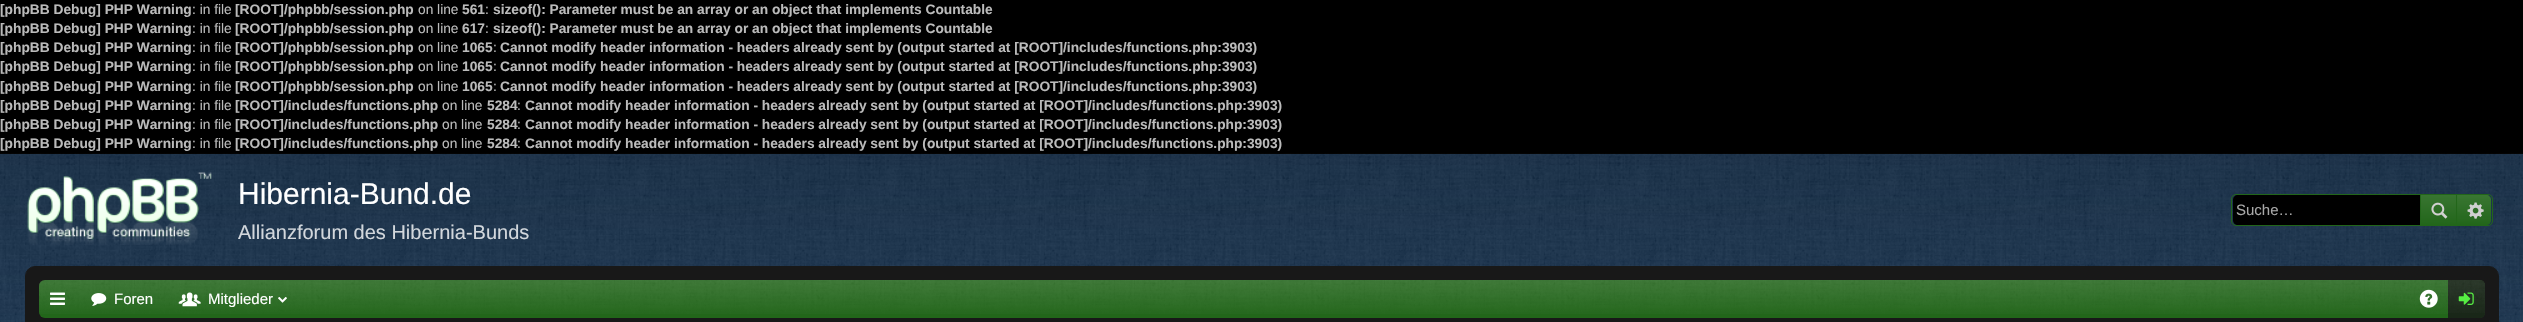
void draw(SkCanvas* canvas) {
	SkPaint paint;
	paint.setAntiAlias(true);
	auto svgPath = [&](const char* data, bool evenOdd = false) {
		SkPath result = *SkParsePath::FromSVGString(data);
		if (evenOdd) result.setFillType(SkPathFillType::kEvenOdd);
		return result;
	};
	canvas->clear(0xffffffff);
	{
		const SkColor colors[] = {0xff000000, 0xff000000, 0xff181818};
		const float stops[] = {0, 0.5, 1};
		const SkPoint ends[] = {{1262, 0}, {1262, 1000}};
		paint.setShader(SkGradientShader::MakeLinear(ends, colors, stops, 3, SkTileMode::kClamp));
		paint.setAlpha(255);
	}
	canvas->drawRect(SkRect::MakeXYWH(0, 0, 2523, 154), paint);
	SkFont f1(fontMgr->matchFamilyStyle("Liberation Sans", SkFontStyle::Bold()), 13.75);
	f1.setSubpixel(true);
	paint.setShader(nullptr);
	paint.setColor(0xffbbbbbb);
	canvas->drawString("[phpBB Debug] PHP Warning", 0, 14, f1, paint);
	SkFont f2(fontMgr->matchFamilyStyle("Liberation Sans", SkFontStyle::Normal()), 13.75);
	f2.setSubpixel(true);
	canvas->drawString(": in file", 192, 14, f2, paint);
	canvas->drawString("[ROOT]/phpbb/session.php", 235, 14, f1, paint);
	canvas->drawString("on line", 418, 14, f2, paint);
	canvas->drawString("561", 462, 14, f1, paint);
	canvas->drawString(":", 485, 14, f2, paint);
	canvas->drawString("sizeof(): Parameter must be an array or an object that implements Countable", 493, 14, f1, paint);
	canvas->drawString("[phpBB Debug] PHP Warning", 0, 33, f1, paint);
	canvas->drawString(": in file", 192, 33, f2, paint);
	canvas->drawString("[ROOT]/phpbb/session.php", 235, 33, f1, paint);
	canvas->drawString("on line", 418, 33, f2, paint);
	canvas->drawString("617", 462, 33, f1, paint);
	canvas->drawString(":", 485, 33, f2, paint);
	canvas->drawString("sizeof(): Parameter must be an array or an object that implements Countable", 493, 33, f1, paint);
	canvas->drawString("[phpBB Debug] PHP Warning", 0, 52, f1, paint);
	canvas->drawString(": in file", 192, 52, f2, paint);
	canvas->drawString("[ROOT]/phpbb/session.php", 235, 52, f1, paint);
	canvas->drawString("on line", 418, 52, f2, paint);
	canvas->drawString("1065", 462, 52, f1, paint);
	canvas->drawString(":", 493, 52, f2, paint);
	canvas->drawString("Cannot modify header information - headers already sent by (output started at [ROOT]/includes/functions.php:3903)", 500, 52, f1, paint);
	canvas->drawString("[phpBB Debug] PHP Warning", 0, 71, f1, paint);
	canvas->drawString(": in file", 192, 71, f2, paint);
	canvas->drawString("[ROOT]/phpbb/session.php", 235, 71, f1, paint);
	canvas->drawString("on line", 418, 71, f2, paint);
	canvas->drawString("1065", 462, 71, f1, paint);
	canvas->drawString(":", 493, 71, f2, paint);
	canvas->drawString("Cannot modify header information - headers already sent by (output started at [ROOT]/includes/functions.php:3903)", 500, 71, f1, paint);
	canvas->drawString("[phpBB Debug] PHP Warning", 0, 91, f1, paint);
	canvas->drawString(": in file", 192, 91, f2, paint);
	canvas->drawString("[ROOT]/phpbb/session.php", 235, 91, f1, paint);
	canvas->drawString("on line", 418, 91, f2, paint);
	canvas->drawString("1065", 462, 91, f1, paint);
	canvas->drawString(":", 493, 91, f2, paint);
	canvas->drawString("Cannot modify header information - headers already sent by (output started at [ROOT]/includes/functions.php:3903)", 500, 91, f1, paint);
	canvas->drawString("[phpBB Debug] PHP Warning", 0, 110, f1, paint);
	canvas->drawString(": in file", 192, 110, f2, paint);
	canvas->drawString("[ROOT]/includes/functions.php", 235, 110, f1, paint);
	canvas->drawString("on line", 442, 110, f2, paint);
	canvas->drawString("5284", 487, 110, f1, paint);
	canvas->drawString(":", 517, 110, f2, paint);
	canvas->drawString("Cannot modify header information - headers already sent by (output started at [ROOT]/includes/functions.php:3903)", 525, 110, f1, paint);
	canvas->drawString("[phpBB Debug] PHP Warning", 0, 129, f1, paint);
	canvas->drawString(": in file", 192, 129, f2, paint);
	canvas->drawString("[ROOT]/includes/functions.php", 235, 129, f1, paint);
	canvas->drawString("on line", 442, 129, f2, paint);
	canvas->drawString("5284", 487, 129, f1, paint);
	canvas->drawString(":", 517, 129, f2, paint);
	canvas->drawString("Cannot modify header information - headers already sent by (output started at [ROOT]/includes/functions.php:3903)", 525, 129, f1, paint);
	canvas->drawString("[phpBB Debug] PHP Warning", 0, 148, f1, paint);
	canvas->drawString(": in file", 192, 148, f2, paint);
	canvas->drawString("[ROOT]/includes/functions.php", 235, 148, f1, paint);
	canvas->drawString("on line", 442, 148, f2, paint);
	canvas->drawString("5284", 487, 148, f1, paint);
	canvas->drawString(":", 517, 148, f2, paint);
	canvas->drawString("Cannot modify header information - headers already sent by (output started at [ROOT]/includes/functions.php:3903)", 525, 148, f1, paint);
	paint.setColor(0xff1a3a5c);
	canvas->drawRect(SkRect::MakeXYWH(0, 154, 2523, 168), paint);
	canvas->drawImageRect(SkImages::DeferredFromEncodedData(SkData::MakeFromFileName("img1.png")), SkRect::MakeXYWH(0, 153, 2523, 169), SkSamplingOptions());
	canvas->drawImageRect(SkImages::DeferredFromEncodedData(SkData::MakeFromFileName("img2.png")), SkRect::MakeXYWH(27, 172, 185, 73), SkSamplingOptions());
	SkFont f3(fontMgr->matchFamilyStyle("Liberation Sans", SkFontStyle::Normal()), 30);
	f3.setSubpixel(true);
	paint.setColor(0xffffffff);
	canvas->drawString("Hibernia-Bund.de", 238, 204, f3, paint);
	SkFont f4(fontMgr->matchFamilyStyle("Liberation Sans", SkFontStyle::Normal()), 20);
	f4.setSubpixel(true);
	paint.setColor(0xffd2d7dc);
	canvas->drawString("Allianzforum des Hibernia-Bunds", 238, 239, f4, paint);
	paint.setStroke(true);
	paint.setStrokeWidth(1);
	paint.setColor(0xff22661a);
	canvas->drawRoundRect(SkRect::MakeXYWH(2231.5, 194.5, 261, 31), 4.5, 4.5, paint);
	paint.setStroke(false);
	paint.setColor(0xff000000);
	canvas->drawPath(svgPath("M2238 195H2420V225H2238C2235 225 2233 223 2233 220V200C2233 197 2235 195 2238 195Z"), paint);
	SkFont f5(fontMgr->matchFamilyStyle("Liberation Sans", SkFontStyle::Normal()), 15);
	f5.setSubpixel(true);
	paint.setColor(0xffa8a8a8);
	canvas->drawString("Suche…", 2236, 215, f5, paint);
	{
		const SkColor colors[] = {0xff387531, 0xff22661a};
		const float stops[] = {0, 1};
		const SkPoint ends[] = {{2439, 195}, {2439, 225}};
		paint.setShader(SkGradientShader::MakeLinear(ends, colors, stops, 2, SkTileMode::kClamp));
		paint.setAlpha(255);
	}
	canvas->drawRect(SkRect::MakeXYWH(2421, 195, 37, 30), paint);
	paint.setShader(nullptr);
	paint.setColor(0xff22661a);
	canvas->drawRect(SkRect::MakeXYWH(2456, 195, 1, 30), paint);
	canvas->drawRect(SkRect::MakeXYWH(2420, 195, 1, 30), paint);
	canvas->drawImageRect(SkImages::DeferredFromEncodedData(SkData::MakeFromFileName("img3.png")), SkRect::MakeXYWH(2431, 202, 17, 17), SkSamplingOptions());
	canvas->drawPath(svgPath("M2458 195H2486C2489 195 2491 197 2491 200V220C2491 223 2489 225 2486 225H2458Z"), paint);
	{
		const SkColor colors[] = {0x1affffff, 0x00ffffff};
		const float stops[] = {0, 1};
		const SkPoint ends[] = {{2474, 195}, {2474, 225}};
		paint.setShader(SkGradientShader::MakeLinear(ends, colors, stops, 2, SkTileMode::kClamp));
		paint.setAlpha(255);
	}
	canvas->drawPath(svgPath("M2458 195H2486C2489 195 2491 197 2491 200V220C2491 223 2489 225 2486 225H2458Z"), paint);
	canvas->drawImageRect(SkImages::DeferredFromEncodedData(SkData::MakeFromFileName("img4.png")), SkRect::MakeXYWH(2467, 202, 17, 17), SkSamplingOptions());
	paint.setShader(nullptr);
	paint.setColor(0xff181818);
	canvas->drawRoundRect(SkRect::MakeXYWH(25.5, 266.5, 2473, 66), 9.5, 9.5, paint);
	paint.setStroke(true);
	canvas->drawRoundRect(SkRect::MakeXYWH(25.5, 266.5, 2473, 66), 9.5, 9.5, paint);
	paint.setStroke(false);
	paint.setColor(0xff22661a);
	canvas->drawRoundRect(SkRect::MakeXYWH(39, 280, 2446, 38), 6, 6, paint);
	canvas->drawImageRect(SkImages::DeferredFromEncodedData(SkData::MakeFromFileName("img5.png")), SkRect::MakeXYWH(39, 280, 2446, 34), SkSamplingOptions());
	canvas->drawImageRect(SkImages::DeferredFromEncodedData(SkData::MakeFromFileName("img6.png")), SkRect::MakeXYWH(50, 292, 15, 13), SkSamplingOptions());
	canvas->drawImageRect(SkImages::DeferredFromEncodedData(SkData::MakeFromFileName("img7.png")), SkRect::MakeXYWH(91, 293, 16, 13), SkSamplingOptions());
	paint.setColor(0xffffffff);
	canvas->drawString("Foren", 114, 304, f5, paint);
	canvas->drawImageRect(SkImages::DeferredFromEncodedData(SkData::MakeFromFileName("img8.png")), SkRect::MakeXYWH(178, 292, 23, 15), SkSamplingOptions());
	canvas->drawString("Mitglieder", 208, 304, f5, paint);
	canvas->drawImageRect(SkImages::DeferredFromEncodedData(SkData::MakeFromFileName("img9.png")), SkRect::MakeXYWH(278, 297, 9, 6), SkSamplingOptions());
	canvas->drawImageRect(SkImages::DeferredFromEncodedData(SkData::MakeFromFileName("img10.png")), SkRect::MakeXYWH(2419, 289, 19, 19), SkSamplingOptions());
	paint.setColor(0xff192718);
	canvas->drawPath(svgPath("M2448 280H2480C2483 280 2485 282 2485 285V313C2485 316 2483 318 2480 318H2448Z"), paint);
	canvas->drawImageRect(SkImages::DeferredFromEncodedData(SkData::MakeFromFileName("img11.png")), SkRect::MakeXYWH(2448, 280, 37, 33), SkSamplingOptions());
	canvas->drawImageRect(SkImages::DeferredFromEncodedData(SkData::MakeFromFileName("img12.png")), SkRect::MakeXYWH(2458, 292, 16, 13), SkSamplingOptions());
}
